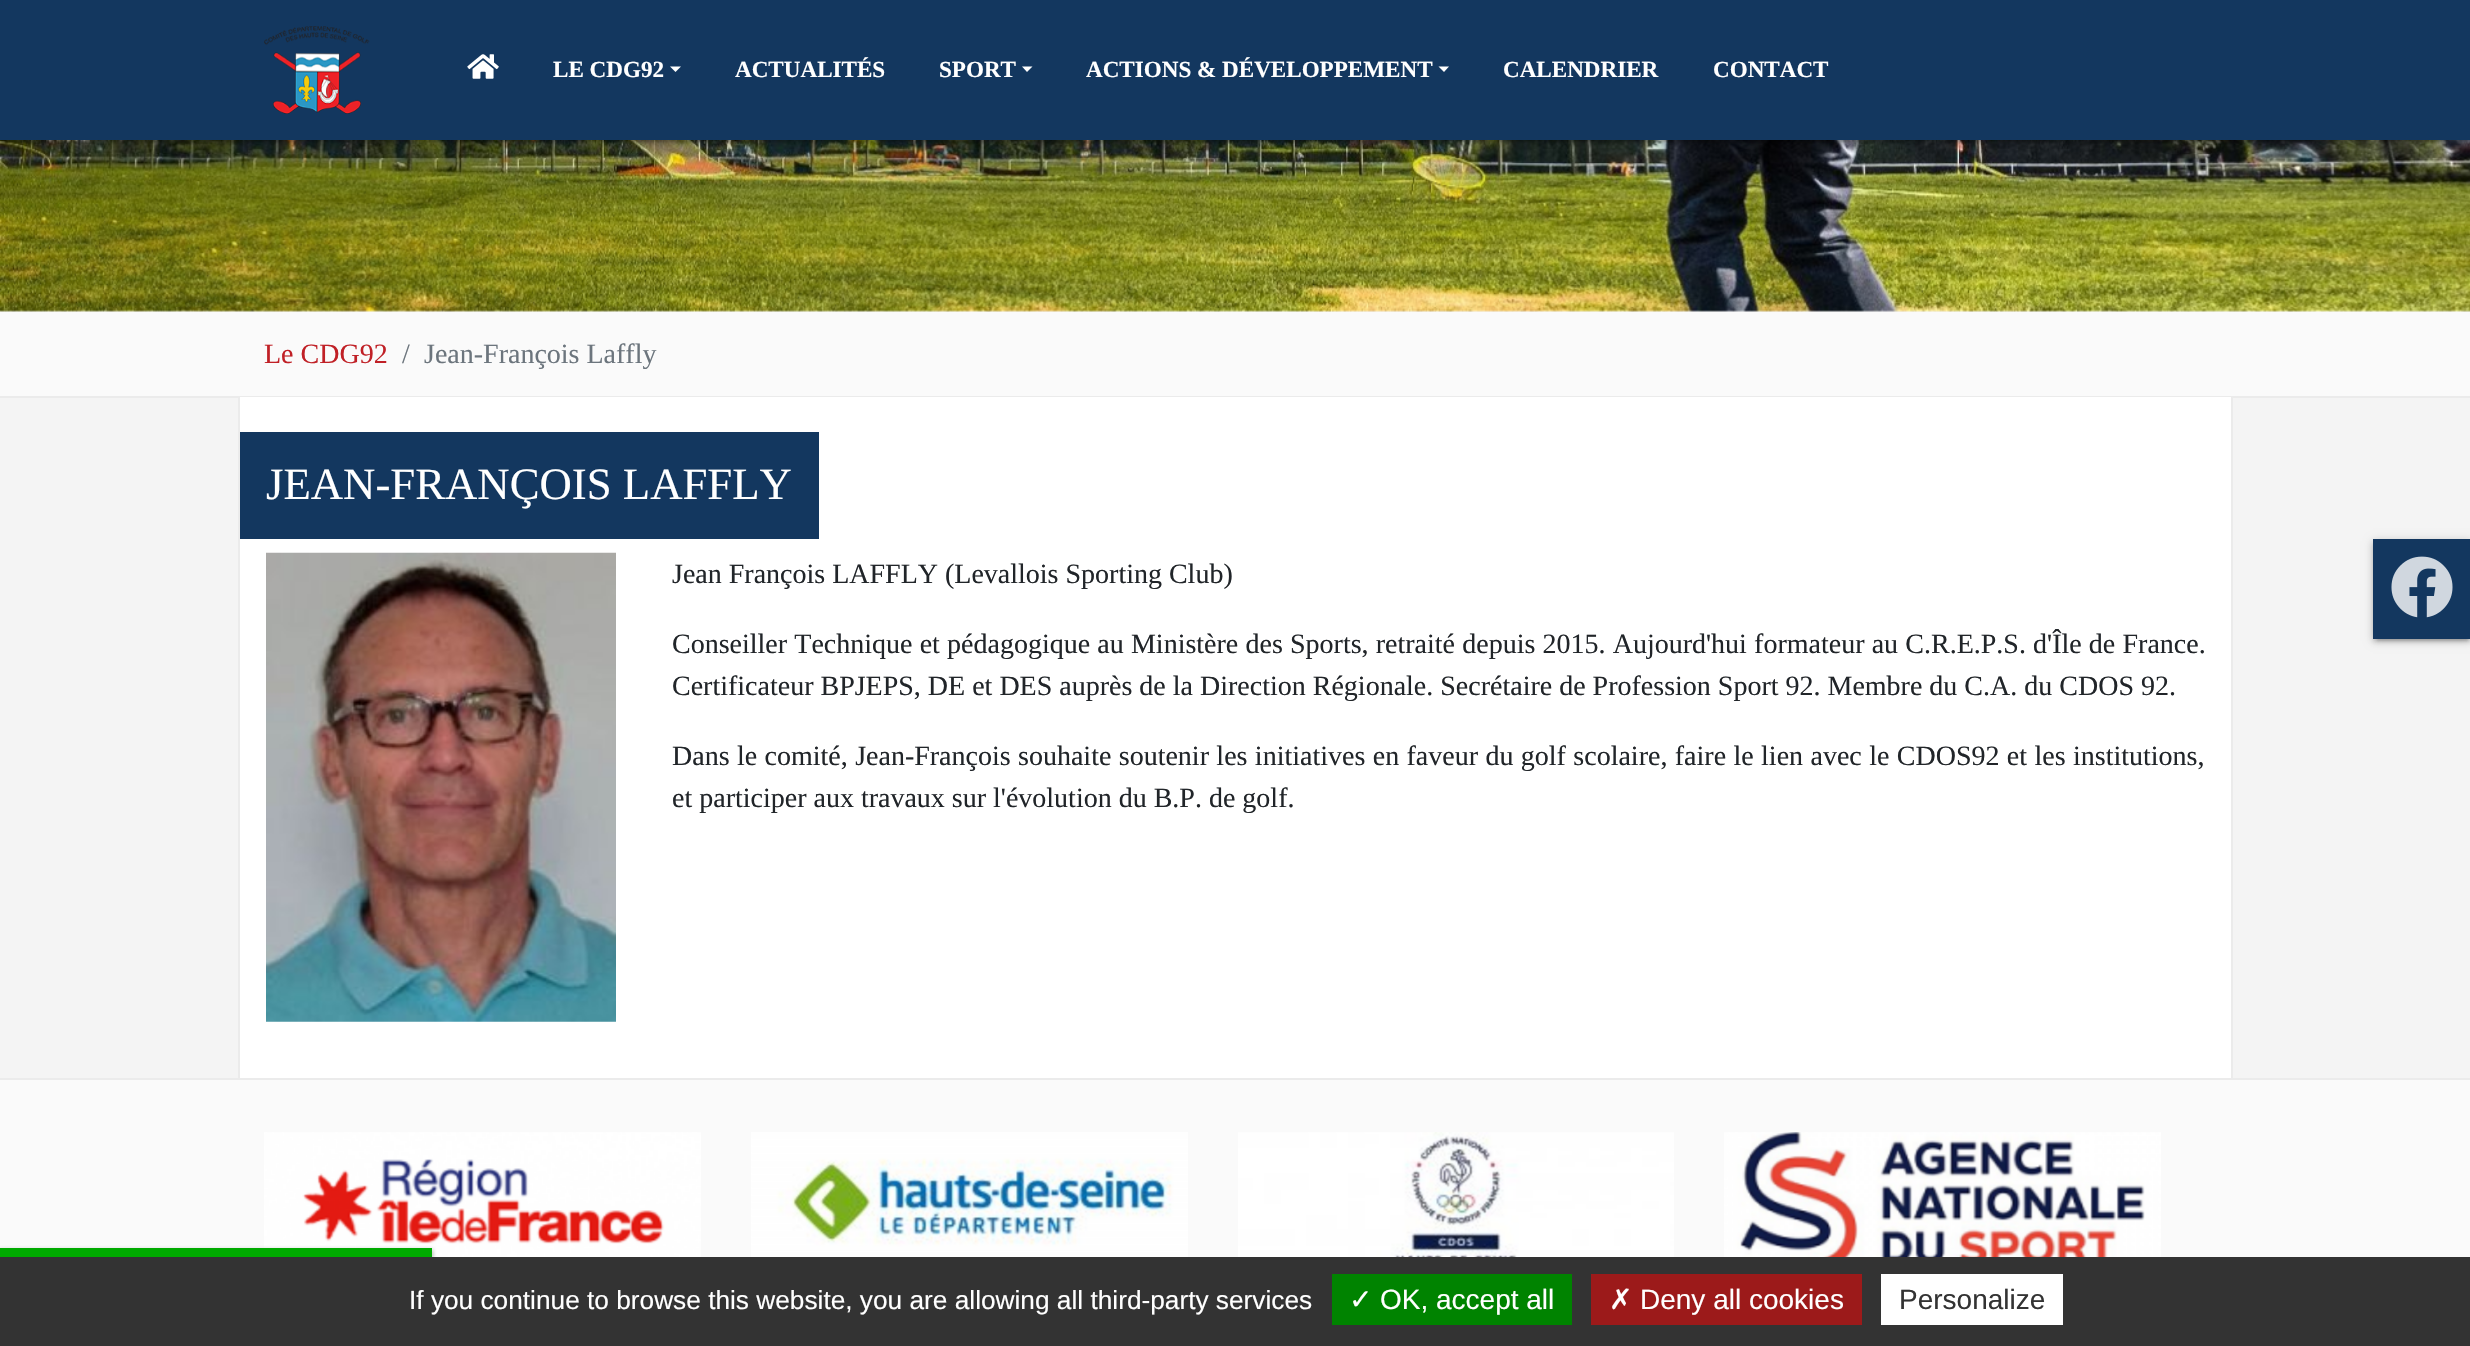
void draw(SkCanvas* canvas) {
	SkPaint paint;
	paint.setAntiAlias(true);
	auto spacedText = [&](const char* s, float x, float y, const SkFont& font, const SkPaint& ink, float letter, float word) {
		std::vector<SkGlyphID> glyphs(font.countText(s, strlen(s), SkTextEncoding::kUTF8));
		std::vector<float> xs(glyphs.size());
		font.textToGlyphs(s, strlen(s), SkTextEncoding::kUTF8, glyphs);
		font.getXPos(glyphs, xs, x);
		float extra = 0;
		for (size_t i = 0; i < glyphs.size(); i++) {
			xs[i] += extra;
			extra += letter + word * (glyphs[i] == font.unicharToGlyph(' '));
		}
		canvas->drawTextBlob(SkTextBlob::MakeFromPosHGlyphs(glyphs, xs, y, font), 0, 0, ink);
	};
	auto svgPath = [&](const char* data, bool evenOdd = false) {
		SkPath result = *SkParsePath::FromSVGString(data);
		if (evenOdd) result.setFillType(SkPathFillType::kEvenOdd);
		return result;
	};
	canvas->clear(0xfff4f4f4);
	canvas->drawImageRect(SkImages::DeferredFromEncodedData(SkData::MakeFromFileName("img3.png")), SkRect::MakeXYWH(0, 140, 2470, 172), SkSamplingOptions());
	paint.setColor(0x33000000);
	paint.setMaskFilter(SkMaskFilter::MakeBlur(kNormal_SkBlurStyle, 4.5));
	canvas->drawRect(SkRect::MakeXYWH(0, 2, 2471, 140), paint);
	paint.setMaskFilter(nullptr);
	paint.setColor(0x1f000000);
	paint.setMaskFilter(SkMaskFilter::MakeBlur(kNormal_SkBlurStyle, 1));
	canvas->drawRect(SkRect::MakeXYWH(4, 9, 2464, 133), paint);
	paint.setMaskFilter(nullptr);
	paint.setColor(0x24000000);
	paint.setMaskFilter(SkMaskFilter::MakeBlur(kNormal_SkBlurStyle, 2));
	canvas->drawRect(SkRect::MakeXYWH(0, 4, 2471, 140), paint);
	paint.setMaskFilter(nullptr);
	paint.setColor(0xff13375f);
	canvas->drawRect(SkRect::MakeXYWH(0, 0, 2470, 140), paint);
	canvas->drawImageRect(SkImages::DeferredFromEncodedData(SkData::MakeFromFileName("img1.png")), SkRect::MakeXYWH(264, 26, 106, 88), SkSamplingOptions());
	canvas->drawImageRect(SkImages::DeferredFromEncodedData(SkData::MakeFromFileName("img2.png")), SkRect::MakeXYWH(467, 54, 32, 25), SkSamplingOptions());
	SkFont f1(fontMgr->matchFamilyStyle("Liberation Serif", SkFontStyle::Bold()), 23.1);
	f1.setSubpixel(true);
	paint.setColor(0xffffffff);
	canvas->drawString("LE CDG92", 553, 77, f1, paint);
	canvas->drawPath(svgPath("M670 66.5H681L675.5 72Z"), paint);
	canvas->drawString("ACTUALITÉS", 735, 77, f1, paint);
	canvas->drawString("SPORT", 939, 77, f1, paint);
	canvas->drawPath(svgPath("M1022 66.5H1032.5L1027 72Z"), paint);
	canvas->drawString("ACTIONS & DÉVELOPPEMENT", 1086, 77, f1, paint);
	canvas->drawPath(svgPath("M1438.5 66.5H1449L1444 72Z"), paint);
	canvas->drawString("CALENDRIER", 1503, 77, f1, paint);
	canvas->drawString("CONTACT", 1713, 77, f1, paint);
	paint.setColor(0xfffafafa);
	canvas->drawRect(SkRect::MakeXYWH(0, 312, 2470, 84), paint);
	paint.setColor(0xffebebeb);
	canvas->drawRect(SkRect::MakeXYWH(0, 396, 2470, 2), paint);
	SkFont f2(fontMgr->matchFamilyStyle("Liberation Serif", SkFontStyle::Normal()), 28);
	f2.setSubpixel(true);
	paint.setColor(0xffc02026);
	canvas->drawString("Le CDG92", 264, 363, f2, paint);
	paint.setColor(0xff6c757d);
	canvas->drawString("/", 402, 363, f2, paint);
	canvas->drawString("Jean-François Laffly", 424, 363, f2, paint);
	paint.setColor(0xffffffff);
	canvas->drawRect(SkRect::MakeXYWH(240, 397, 1991, 681), paint);
	paint.setColor(0xffebebeb);
	canvas->drawRect(SkRect::MakeXYWH(2231, 397, 2, 681), paint);
	canvas->drawRect(SkRect::MakeXYWH(238, 397, 2, 681), paint);
	paint.setColor(0xff13375f);
	canvas->drawRect(SkRect::MakeXYWH(240, 432, 579, 107), paint);
	SkFont f3(fontMgr->matchFamilyStyle("Liberation Serif", SkFontStyle::Normal()), 44.75);
	f3.setSubpixel(true);
	paint.setColor(0xffffffff);
	canvas->drawString("JEAN-FRANÇOIS LAFFLY", 266, 499, f3, paint);
	canvas->drawImageRect(SkImages::DeferredFromEncodedData(SkData::MakeFromFileName("img4.png")), SkRect::MakeXYWH(266, 552, 350, 470), SkSamplingOptions());
	paint.setColor(0xff212529);
	canvas->drawString("Jean François LAFFLY (Levallois Sporting Club)", 672, 583, f2, paint);
	spacedText("Conseiller Technique et pédagogique au Ministère des Sports, retraité depuis 2015. Aujourd'hui formateur au C.R.E.P.S. d'Île de France.", 672, 653, f2, paint, 0, 0.2);
	canvas->drawString("Certificateur BPJEPS, DE et DES auprès de la Direction Régionale. Secrétaire de Profession Sport 92. Membre du C.A. du CDOS 92.", 672, 695, f2, paint);
	spacedText("Dans le comité, Jean-François souhaite soutenir les initiatives en faveur du golf scolaire, faire le lien avec le CDOS92 et les institutions,", 672, 765, f2, paint, 0, 0.4);
	canvas->drawString("et participer aux travaux sur l'évolution du B.P. de golf.", 672, 807, f2, paint);
	paint.setColor(0x33000000);
	paint.setMaskFilter(SkMaskFilter::MakeBlur(kNormal_SkBlurStyle, 4.5));
	canvas->drawRect(SkRect::MakeXYWH(2373, 541, 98, 100), paint);
	paint.setMaskFilter(nullptr);
	paint.setColor(0x1f000000);
	paint.setMaskFilter(SkMaskFilter::MakeBlur(kNormal_SkBlurStyle, 1));
	canvas->drawRect(SkRect::MakeXYWH(2377, 548, 91, 93), paint);
	paint.setMaskFilter(nullptr);
	paint.setColor(0x24000000);
	paint.setMaskFilter(SkMaskFilter::MakeBlur(kNormal_SkBlurStyle, 2));
	canvas->drawRect(SkRect::MakeXYWH(2373, 543, 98, 99), paint);
	paint.setMaskFilter(nullptr);
	paint.setColor(0xff13375f);
	canvas->drawRect(SkRect::MakeXYWH(2373, 539, 97, 100), paint);
	canvas->drawImageRect(SkImages::DeferredFromEncodedData(SkData::MakeFromFileName("img5.png")), SkRect::MakeXYWH(2391, 556, 62, 62), SkSamplingOptions());
	paint.setColor(0xfffafafa);
	canvas->drawRect(SkRect::MakeXYWH(0, 1080, 2470, 177), paint);
	paint.setColor(0xffebebeb);
	canvas->drawRect(SkRect::MakeXYWH(0, 1078, 2470, 2), paint);
	canvas->drawImageRect(SkImages::DeferredFromEncodedData(SkData::MakeFromFileName("img6.png")), SkRect::MakeXYWH(264, 1132, 437, 125), SkSamplingOptions());
	canvas->drawImageRect(SkImages::DeferredFromEncodedData(SkData::MakeFromFileName("img7.png")), SkRect::MakeXYWH(751, 1132, 437, 125), SkSamplingOptions());
	canvas->drawImageRect(SkImages::DeferredFromEncodedData(SkData::MakeFromFileName("img8.png")), SkRect::MakeXYWH(1238, 1132, 436, 125), SkSamplingOptions());
	canvas->drawImageRect(SkImages::DeferredFromEncodedData(SkData::MakeFromFileName("img9.png")), SkRect::MakeXYWH(1724, 1132, 437, 125), SkSamplingOptions());
	paint.setColor(0xff555555);
	paint.setMaskFilter(SkMaskFilter::MakeBlur(kNormal_SkBlurStyle, 2));
	canvas->drawRect(SkRect::MakeXYWH(0, 1250, 432, 8), paint);
	paint.setMaskFilter(nullptr);
	paint.setColor(0xffffffff);
	paint.setMaskFilter(SkMaskFilter::MakeBlur(kNormal_SkBlurStyle, 2));
	canvas->drawRect(SkRect::MakeXYWH(0, 1248, 432, 9), paint);
	paint.setMaskFilter(nullptr);
	paint.setColor(0xff00aa00);
	canvas->drawRect(SkRect::MakeXYWH(0, 1248, 432, 9), paint);
	paint.setColor(0xff333333);
	canvas->drawRect(SkRect::MakeXYWH(0, 1257, 2470, 89), paint);
	SkFont f4(fontMgr->matchFamilyStyle("Liberation Sans", SkFontStyle::Normal()), 26.25);
	f4.setSubpixel(true);
	paint.setColor(0xffffffff);
	canvas->drawString("If you continue to browse this website, you are allowing all third-party services", 409, 1309, f4, paint);
	paint.setColor(0xff008300);
	canvas->drawRect(SkRect::MakeXYWH(1332, 1274, 240, 51), paint);
	SkFont f5(fontMgr->matchFamilyStyle("DejaVu Sans", SkFontStyle::Normal()), 28);
	f5.setSubpixel(true);
	paint.setColor(0xffffffff);
	canvas->drawString("✓", 1349, 1309, f5, paint);
	SkFont f6(fontMgr->matchFamilyStyle("Liberation Sans", SkFontStyle::Normal()), 28);
	f6.setSubpixel(true);
	canvas->drawString("OK, accept all", 1380, 1309, f6, paint);
	paint.setColor(0xff9c1a1a);
	canvas->drawRect(SkRect::MakeXYWH(1591, 1274, 271, 51), paint);
	paint.setColor(0xffffffff);
	canvas->drawString("✗", 1609, 1309, f5, paint);
	canvas->drawString("Deny all cookies", 1640, 1309, f6, paint);
	canvas->drawRect(SkRect::MakeXYWH(1881, 1274, 182, 51), paint);
	paint.setColor(0xff333333);
	canvas->drawString("Personalize", 1899, 1309, f6, paint);
}
